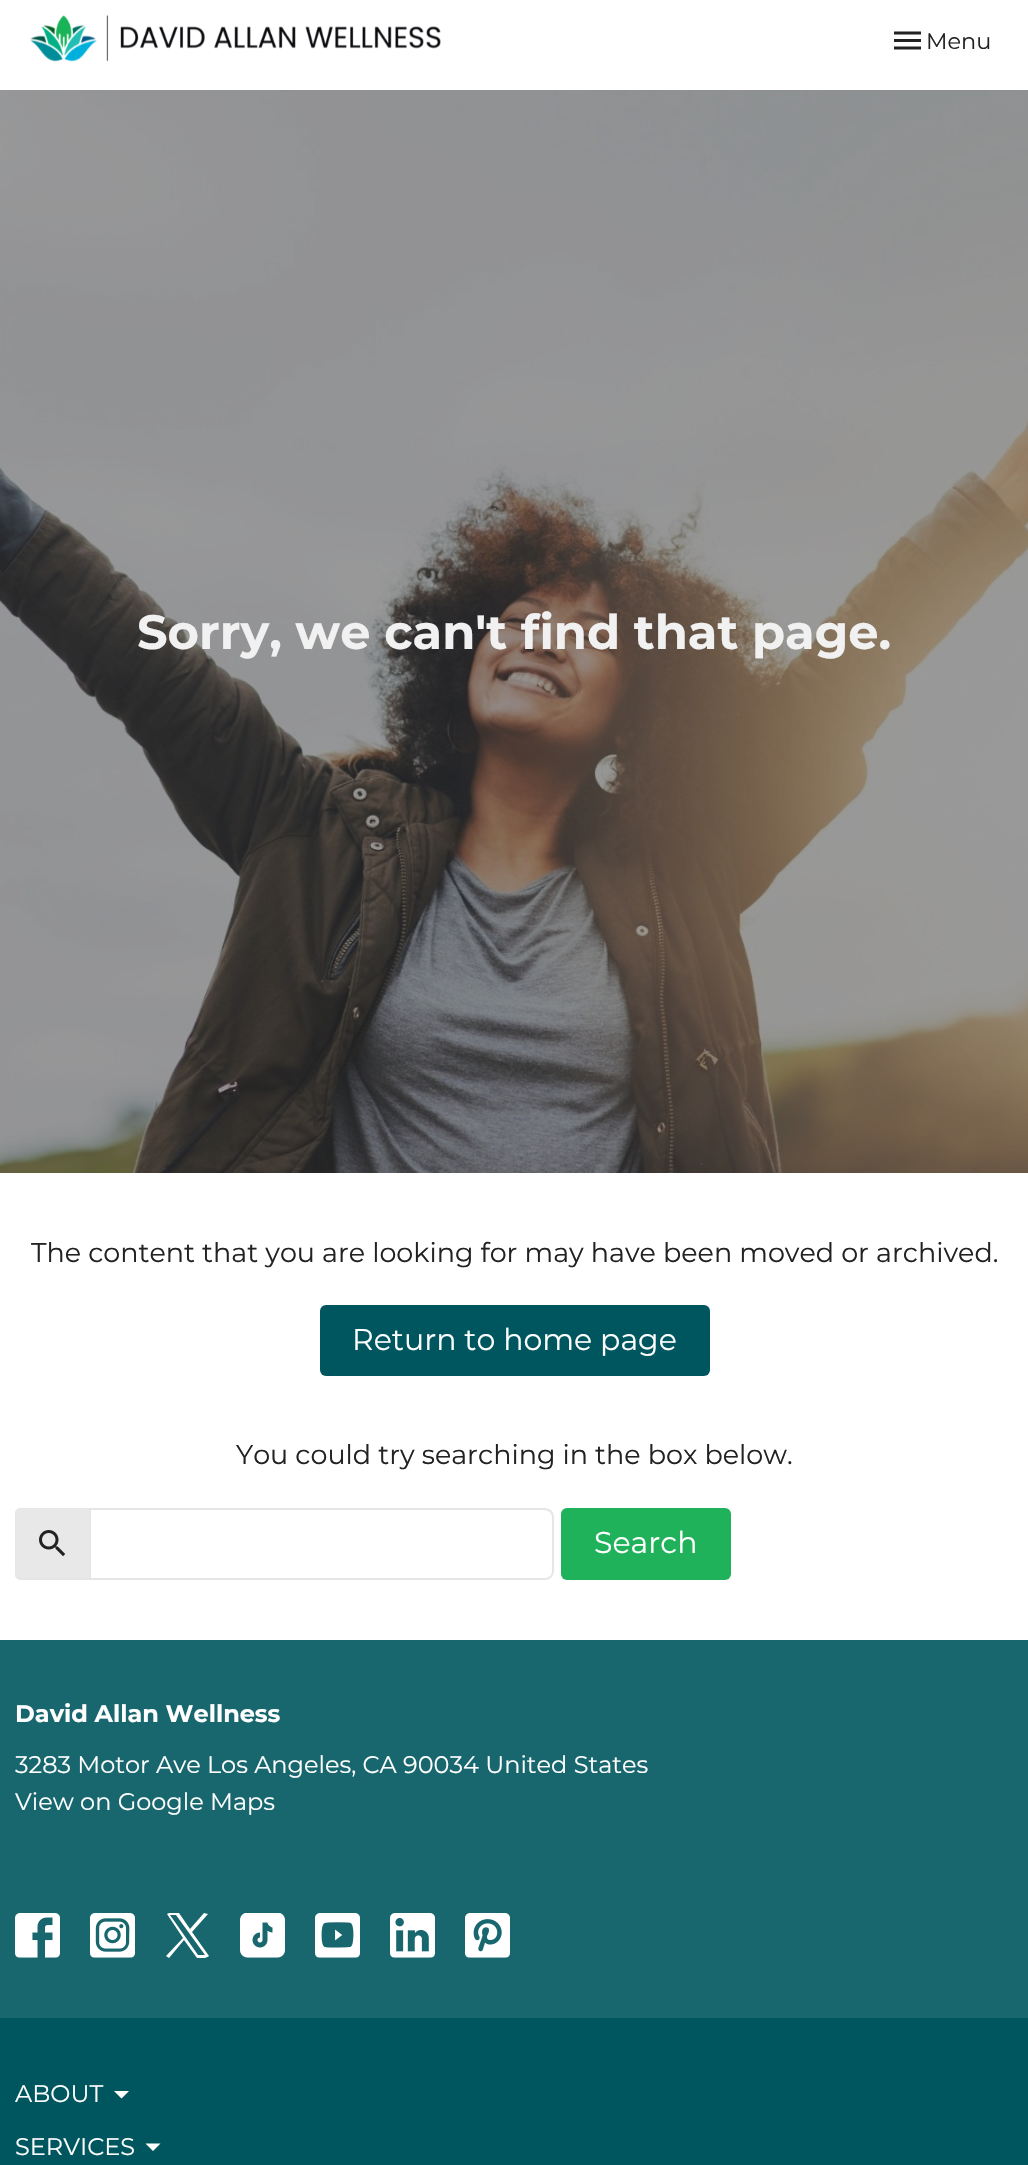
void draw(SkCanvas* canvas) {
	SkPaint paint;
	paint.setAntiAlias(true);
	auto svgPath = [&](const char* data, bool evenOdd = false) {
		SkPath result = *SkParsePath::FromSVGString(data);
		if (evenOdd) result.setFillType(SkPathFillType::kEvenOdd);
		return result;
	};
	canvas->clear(0xffffffff);
	canvas->drawImageRect(SkImages::DeferredFromEncodedData(SkData::MakeFromFileName("img1.png")), SkRect::MakeXYWH(30, 15, 411, 47), SkSamplingOptions());
	canvas->drawImageRect(SkImages::DeferredFromEncodedData(SkData::MakeFromFileName("img2.png")), SkRect::MakeXYWH(894, 31, 27, 19), SkSamplingOptions());
	SkFont f1(fontMgr->matchFamilyStyle("Montserrat", SkFontStyle::Normal()), 22.5);
	f1.setSubpixel(true);
	paint.setColor(0xff222222);
	canvas->drawString("Menu", 926, 49, f1, paint);
	canvas->drawImageRect(SkImages::DeferredFromEncodedData(SkData::MakeFromFileName("img3.png")), SkRect::MakeXYWH(0, 90, 1028, 1083), SkSamplingOptions());
	SkFont f2(fontMgr->matchFamilyStyle("Montserrat", SkFontStyle::Bold()), 48);
	f2.setSubpixel(true);
	paint.setColor(0xfff1f1f1);
	canvas->drawString("Sorry, we can't find that page.", 137, 649, f2, paint);
	SkFont f3(fontMgr->matchFamilyStyle("Montserrat", SkFontStyle::Normal()), 27);
	f3.setSubpixel(true);
	paint.setColor(0xff222222);
	canvas->drawString("The content that you are looking for may have been moved or archived.", 31, 1262, f3, paint);
	paint.setColor(0xff00565e);
	canvas->drawRoundRect(SkRect::MakeXYWH(320, 1305, 390, 71), 6, 6, paint);
	SkFont f4(fontMgr->matchFamilyStyle("Montserrat", SkFontStyle::Normal()), 30);
	f4.setSubpixel(true);
	paint.setColor(0xffffffff);
	canvas->drawString("Return to home page", 352, 1350, f4, paint);
	paint.setColor(0xff222222);
	canvas->drawString("You could try searching in the box below.", 236, 1464, f3, paint);
	paint.setColor(0xffe8e8e8);
	canvas->drawPath(svgPath("M21 1508H89V1580H21C17.5 1580 15 1577.5 15 1574V1514C15 1510.5 17.5 1508 21 1508Z"), paint);
	paint.setColor(0xffe6e6e6);
	canvas->drawPath(svgPath("M21 1508H88V1580H21C18 1580 15 1577 15 1574V1514C15 1510 18 1508 21 1508ZM21 1509H88V1578H21C19 1578 16 1576 16 1574V1514C16 1511 19 1509 21 1509Z", true), paint);
	canvas->drawImageRect(SkImages::DeferredFromEncodedData(SkData::MakeFromFileName("img4.png")), SkRect::MakeXYWH(39, 1530, 27, 27), SkSamplingOptions());
	paint.setColor(0xffececec);
	canvas->drawPath(svgPath("M90 1510H544C549 1510 552 1514 552 1518C552 1513 549 1509 544 1509H90Z"), paint);
	paint.setStroke(true);
	paint.setStrokeWidth(2);
	paint.setColor(0xffe6e6e6);
	canvas->drawPath(svgPath("M90 1509H545C549.5 1509 553 1512.5 553 1517V1571C553 1575.5 549.5 1579 545 1579H90Z"), paint);
	paint.setStroke(false);
	paint.setColor(0xff1fb25a);
	canvas->drawRoundRect(SkRect::MakeXYWH(561, 1508, 170, 72), 6, 6, paint);
	paint.setColor(0xffffffff);
	canvas->drawString("Search", 594, 1553, f4, paint);
	paint.setColor(0xff19676e);
	canvas->drawRect(SkRect::MakeXYWH(0, 1640, 1028, 378), paint);
	SkFont f5(fontMgr->matchFamilyStyle("Montserrat", SkFontStyle::Bold()), 24);
	f5.setSubpixel(true);
	paint.setColor(0xffffffff);
	canvas->drawString("David Allan Wellness", 15, 1722, f5, paint);
	SkFont f6(fontMgr->matchFamilyStyle("Montserrat", SkFontStyle::Normal()), 24);
	f6.setSubpixel(true);
	canvas->drawString("3283 Motor Ave Los Angeles, CA 90034 United States", 15, 1773, f6, paint);
	canvas->drawString("View on Google Maps", 15, 1810, f6, paint);
	canvas->drawImageRect(SkImages::DeferredFromEncodedData(SkData::MakeFromFileName("img5.png")), SkRect::MakeXYWH(15, 1913, 45, 45), SkSamplingOptions());
	canvas->drawImageRect(SkImages::DeferredFromEncodedData(SkData::MakeFromFileName("img6.png")), SkRect::MakeXYWH(90, 1913, 45, 45), SkSamplingOptions());
	canvas->save();
	canvas->clipRect(SkRect::MakeXYWH(165, 1913, 45, 45));
	canvas->drawPath(svgPath("M192 1932L209 1956C206 1959 200 1958 197 1958L184 1940L169 1958L166 1956L183 1938L167 1914C169 1912 175 1913 179 1913L190 1929L204 1913L208 1914ZM170 1915L198 1955H205L176 1915Z", true), paint);
	canvas->restore();
	canvas->drawImageRect(SkImages::DeferredFromEncodedData(SkData::MakeFromFileName("img7.png")), SkRect::MakeXYWH(240, 1913, 45, 45), SkSamplingOptions());
	canvas->drawImageRect(SkImages::DeferredFromEncodedData(SkData::MakeFromFileName("img8.png")), SkRect::MakeXYWH(315, 1913, 45, 45), SkSamplingOptions());
	canvas->drawImageRect(SkImages::DeferredFromEncodedData(SkData::MakeFromFileName("img9.png")), SkRect::MakeXYWH(390, 1913, 45, 45), SkSamplingOptions());
	canvas->drawImageRect(SkImages::DeferredFromEncodedData(SkData::MakeFromFileName("img10.png")), SkRect::MakeXYWH(465, 1913, 45, 45), SkSamplingOptions());
	paint.setColor(0xff00565e);
	canvas->drawRect(SkRect::MakeXYWH(0, 2018, 1028, 147), paint);
	paint.setColor(0xffffffff);
	canvas->drawString("ABOUT", 15, 2102, f6, paint);
	canvas->drawPath(svgPath("M114 2091L121.5 2098.5L129 2091ZM145.5 2143.5L153 2151L160.5 2143.5Z"), paint);
	canvas->drawString("SERVICES", 15, 2155, f6, paint);
}
